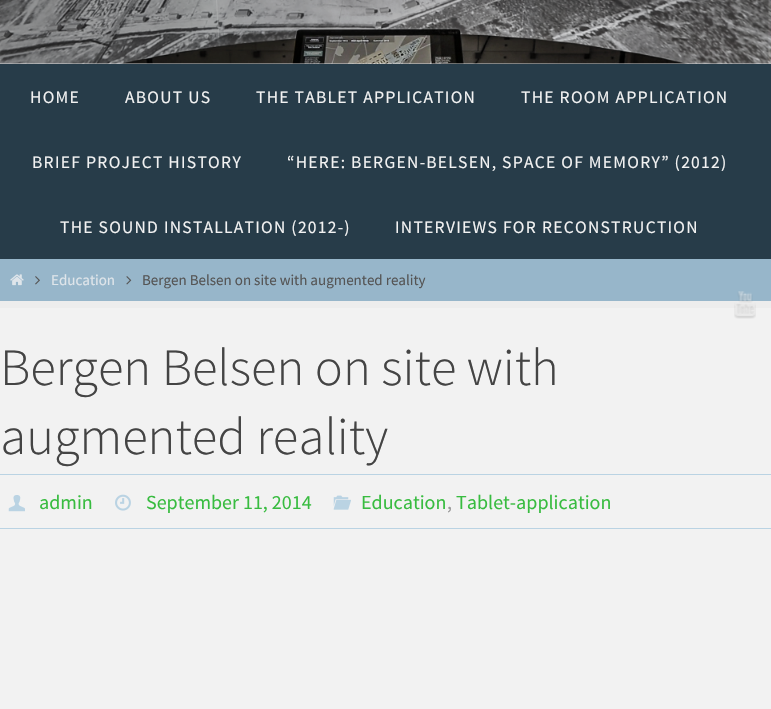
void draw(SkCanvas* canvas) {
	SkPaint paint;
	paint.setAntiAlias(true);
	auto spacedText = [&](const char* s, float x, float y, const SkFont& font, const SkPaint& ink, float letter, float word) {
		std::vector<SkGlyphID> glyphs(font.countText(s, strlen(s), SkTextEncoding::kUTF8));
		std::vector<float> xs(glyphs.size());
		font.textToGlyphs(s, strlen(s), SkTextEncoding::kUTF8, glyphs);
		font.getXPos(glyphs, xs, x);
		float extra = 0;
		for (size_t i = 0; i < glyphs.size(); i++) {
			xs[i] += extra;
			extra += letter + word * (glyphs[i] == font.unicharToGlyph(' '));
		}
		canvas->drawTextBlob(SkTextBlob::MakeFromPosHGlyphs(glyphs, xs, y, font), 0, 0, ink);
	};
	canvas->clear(0xffededed);
	paint.setColor(0xffe8ebed);
	canvas->drawRect(SkRect::MakeXYWH(0, 0, 771, 64), paint);
	canvas->drawImageRect(SkImages::DeferredFromEncodedData(SkData::MakeFromFileName("img1.png")), SkRect::MakeXYWH(0, 0, 771, 64), SkSamplingOptions());
	paint.setColor(0xff273c49);
	canvas->drawRect(SkRect::MakeXYWH(0, 64, 771, 195), paint);
	SkFont f1(fontMgr->matchFamilyStyle("Source Sans Pro", SkFontStyle::Normal()), 17.5);
	f1.setSubpixel(true);
	paint.setColor(0xfff2f2f2);
	spacedText("HOME", 30, 103, f1, paint, 1.25, 0);
	spacedText("ABOUT US", 125, 103, f1, paint, 1.25, 0);
	spacedText("THE TABLET APPLICATION", 256, 103, f1, paint, 1.25, 0);
	spacedText("THE ROOM APPLICATION", 521, 103, f1, paint, 1.25, 0);
	spacedText("BRIEF PROJECT HISTORY", 32, 168, f1, paint, 1.25, 0);
	spacedText("“HERE: BERGEN-BELSEN, SPACE OF MEMORY” (2012)", 287, 168, f1, paint, 1.25, 0);
	spacedText("THE SOUND INSTALLATION (2012-)", 60, 233, f1, paint, 1.25, 0);
	spacedText("INTERVIEWS FOR RECONSTRUCTION", 395, 233, f1, paint, 1.25, 0);
	paint.setColor(0xff97b6ca);
	canvas->drawRect(SkRect::MakeXYWH(0, 259, 771, 42), paint);
	canvas->drawImageRect(SkImages::DeferredFromEncodedData(SkData::MakeFromFileName("img2.png")), SkRect::MakeXYWH(10, 274, 14, 12), SkSamplingOptions());
	canvas->drawImageRect(SkImages::DeferredFromEncodedData(SkData::MakeFromFileName("img3.png")), SkRect::MakeXYWH(35, 276, 5, 9), SkSamplingOptions());
	SkFont f2(fontMgr->matchFamilyStyle("Source Sans Pro", SkFontStyle::Normal()), 15);
	f2.setSubpixel(true);
	paint.setColor(0xffdfe5ea);
	canvas->drawString("Education", 51, 285, f2, paint);
	canvas->drawImageRect(SkImages::DeferredFromEncodedData(SkData::MakeFromFileName("img4.png")), SkRect::MakeXYWH(126, 276, 6, 9), SkSamplingOptions());
	paint.setColor(0xff555555);
	canvas->drawString("Bergen Belsen on site with augmented reality", 142, 285, f2, paint);
	paint.setColor(0xfff2f2f2);
	canvas->drawRect(SkRect::MakeXYWH(0, 308, 771, 401), paint);
	canvas->drawImageRect(SkImages::DeferredFromEncodedData(SkData::MakeFromFileName("img5.png")), SkRect::MakeXYWH(734, 291, 22, 28), SkSamplingOptions());
	SkFont f3(fontMgr->matchFamilyStyle("Source Sans Pro", SkFontStyle(300, SkFontStyle::kNormal_Width, SkFontStyle::kUpright_Slant)), 52.5);
	f3.setSubpixel(true);
	paint.setColor(0xff444444);
	canvas->drawString("Bergen Belsen on site with", 0, 385, f3, paint);
	canvas->drawString("augmented reality", 0, 454, f3, paint);
	paint.setColor(0xffbad3e3);
	canvas->drawRect(SkRect::MakeXYWH(0, 474, 771, 1), paint);
	canvas->drawRect(SkRect::MakeXYWH(0, 528, 771, 1), paint);
	canvas->drawImageRect(SkImages::DeferredFromEncodedData(SkData::MakeFromFileName("img6.png")), SkRect::MakeXYWH(8, 495, 17, 17), SkSamplingOptions());
	SkFont f4(fontMgr->matchFamilyStyle("Source Sans Pro", SkFontStyle::Normal()), 20);
	f4.setSubpixel(true);
	paint.setColor(0xff38bc40);
	canvas->drawString("admin", 39, 509, f4, paint);
	canvas->drawImageRect(SkImages::DeferredFromEncodedData(SkData::MakeFromFileName("img7.png")), SkRect::MakeXYWH(115, 494, 16, 17), SkSamplingOptions());
	canvas->drawString("September 11, 2014", 146, 509, f4, paint);
	canvas->drawImageRect(SkImages::DeferredFromEncodedData(SkData::MakeFromFileName("img8.png")), SkRect::MakeXYWH(333, 495, 18, 15), SkSamplingOptions());
	canvas->drawString("Education", 361, 509, f4, paint);
	paint.setColor(0xff999999);
	canvas->drawString(",", 447, 509, f4, paint);
	paint.setColor(0xff38bc40);
	canvas->drawString("Tablet-application", 456, 509, f4, paint);
}
